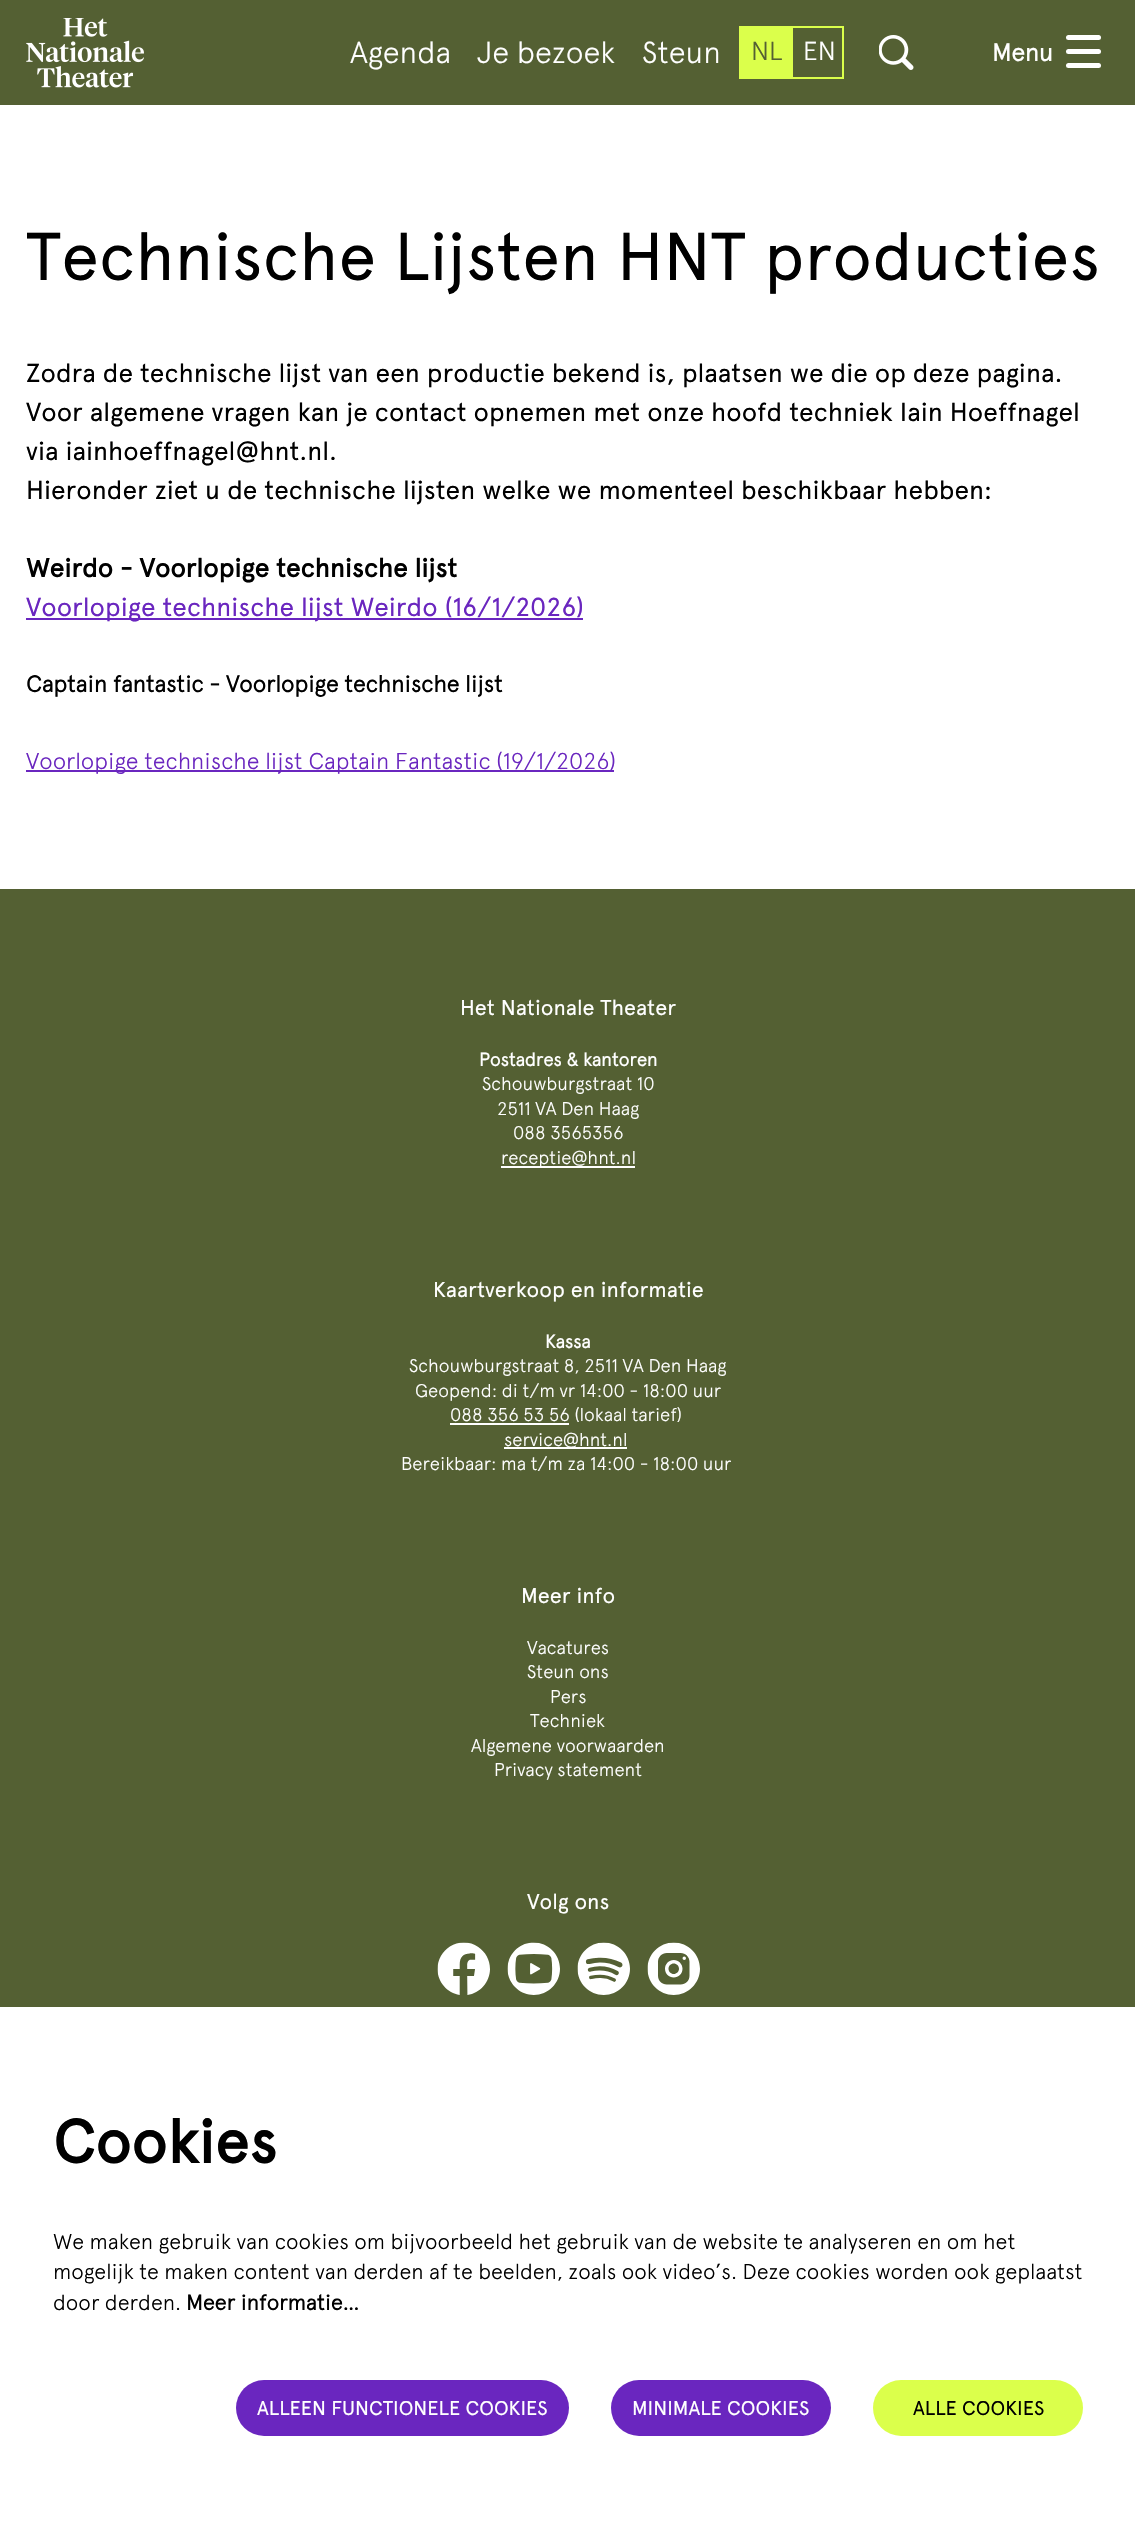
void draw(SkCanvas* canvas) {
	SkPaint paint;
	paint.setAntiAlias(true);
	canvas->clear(0xffffffff);
	paint.setColor(0xff546033);
	canvas->drawRect(SkRect::MakeXYWH(0, 0, 1135, 105), paint);
	canvas->drawImageRect(SkImages::DeferredFromEncodedData(SkData::MakeFromFileName("img1.png")), SkRect::MakeXYWH(26, 18, 118, 70), SkSamplingOptions());
	SkFont f1(fontMgr->matchFamilyStyle("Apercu", SkFontStyle(300, SkFontStyle::kNormal_Width, SkFontStyle::kUpright_Slant)), 30.5);
	f1.setSubpixel(true);
	paint.setColor(0xffffffff);
	canvas->drawString("Agenda", 350, 63, f1, paint);
	canvas->drawString("Je bezoek", 477, 63, f1, paint);
	canvas->drawString("Steun", 642, 63, f1, paint);
	paint.setColor(0xffdbff4b);
	canvas->drawRect(SkRect::MakeXYWH(739, 26, 52, 53), paint);
	SkFont f2(fontMgr->matchFamilyStyle("Apercu", SkFontStyle(300, SkFontStyle::kNormal_Width, SkFontStyle::kUpright_Slant)), 26);
	f2.setSubpixel(true);
	paint.setColor(0xff546033);
	canvas->drawString("NL", 751, 60, f2, paint);
	paint.setStroke(true);
	paint.setStrokeWidth(2);
	paint.setColor(0xffdbff4b);
	canvas->drawRect(SkRect::MakeXYWH(792, 27, 51, 51), paint);
	paint.setStroke(false);
	paint.setColor(0xffffffff);
	canvas->drawString("EN", 803, 60, f2, paint);
	canvas->drawImageRect(SkImages::DeferredFromEncodedData(SkData::MakeFromFileName("img2.png")), SkRect::MakeXYWH(879, 35, 35, 35), SkSamplingOptions());
	SkFont f3(fontMgr->matchFamilyStyle("Apercu", SkFontStyle::Bold()), 24.5);
	f3.setSubpixel(true);
	canvas->drawString("Menu", 992, 61, f3, paint);
	canvas->drawRoundRect(SkRect::MakeXYWH(1066, 35, 35, 5), 2.5, 2.5, paint);
	canvas->drawRoundRect(SkRect::MakeXYWH(1066, 49, 35, 5), 2.5, 2.5, paint);
	canvas->drawRoundRect(SkRect::MakeXYWH(1066, 63, 35, 5), 2.5, 2.5, paint);
	SkFont f4(fontMgr->matchFamilyStyle("Apercu", SkFontStyle::Normal()), 67.4);
	f4.setSubpixel(true);
	paint.setColor(0xff000000);
	canvas->drawString("Technische Lijsten HNT producties", 26, 280, f4, paint);
	SkFont f5(fontMgr->matchFamilyStyle("Apercu", SkFontStyle::Normal()), 26.05);
	f5.setSubpixel(true);
	canvas->drawString("Zodra de technische lijst van een productie bekend is, plaatsen we die op deze pagina.", 26, 382, f5, paint);
	canvas->drawString("Voor algemene vragen kan je contact opnemen met onze hoofd techniek Iain Hoeffnagel", 26, 421, f5, paint);
	canvas->drawString("via iainhoeffnagel@hnt.nl.", 26, 460, f5, paint);
	canvas->drawString("Hieronder ziet u de technische lijsten welke we momenteel beschikbaar hebben:", 26, 499, f5, paint);
	SkFont f6(fontMgr->matchFamilyStyle("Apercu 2", SkFontStyle::Bold()), 26.05);
	f6.setSubpixel(true);
	canvas->drawString("Weirdo - Voorlopige technische lijst", 26, 577, f6, paint);
	paint.setColor(0xff6a26bf);
	canvas->drawRect(SkRect::MakeXYWH(26, 618, 557, 2), paint);
	canvas->drawString("Voorlopige technische lijst Weirdo (16/1/2026)", 26, 616, f5, paint);
	SkFont f7(fontMgr->matchFamilyStyle("Apercu", SkFontStyle::Bold()), 23);
	f7.setSubpixel(true);
	paint.setColor(0xff000000);
	canvas->drawString("Captain fantastic - Voorlopige technische lijst", 26, 692, f7, paint);
	paint.setColor(0xff6a26bf);
	canvas->drawRect(SkRect::MakeXYWH(26, 770, 588, 2), paint);
	SkFont f8(fontMgr->matchFamilyStyle("Apercu", SkFontStyle(300, SkFontStyle::kNormal_Width, SkFontStyle::kUpright_Slant)), 23);
	f8.setSubpixel(true);
	canvas->drawString("Voorlopige technische lijst Captain Fantastic (19/1/2026)", 26, 769, f8, paint);
	paint.setColor(0xff546033);
	canvas->drawRect(SkRect::MakeXYWH(0, 889, 1135, 1118), paint);
	SkFont f9(fontMgr->matchFamilyStyle("Apercu", SkFontStyle::Normal()), 21.45);
	f9.setSubpixel(true);
	paint.setColor(0xffffffff);
	canvas->drawString("Het Nationale Theater", 460, 1015, f9, paint);
	SkFont f10(fontMgr->matchFamilyStyle("Apercu", SkFontStyle::Bold()), 18.4);
	f10.setSubpixel(true);
	canvas->drawString("Postadres & kantoren", 479, 1066, f10, paint);
	SkFont f11(fontMgr->matchFamilyStyle("Apercu", SkFontStyle(300, SkFontStyle::kNormal_Width, SkFontStyle::kUpright_Slant)), 18.4);
	f11.setSubpixel(true);
	canvas->drawString("Schouwburgstraat 10", 482, 1090, f11, paint);
	canvas->drawString("2511 VA Den Haag", 497, 1115, f11, paint);
	canvas->drawString("088 3565356", 513, 1139, f11, paint);
	canvas->drawRect(SkRect::MakeXYWH(501, 1166, 134, 2), paint);
	canvas->drawString("receptie@hnt.nl", 501, 1164, f11, paint);
	canvas->drawString("Kaartverkoop en informatie", 433, 1297, f9, paint);
	canvas->drawString("Kassa", 545, 1348, f10, paint);
	canvas->drawString("Schouwburgstraat 8, 2511 VA Den Haag", 409, 1372, f11, paint);
	canvas->drawString("Geopend: di t/m vr 14:00 - 18:00 uur", 415, 1397, f11, paint);
	canvas->drawString("088 356 53 56 (lokaal tarief)", 450, 1421, f11, paint);
	canvas->drawRect(SkRect::MakeXYWH(450, 1423, 119, 2), paint);
	canvas->drawRect(SkRect::MakeXYWH(504, 1447, 123, 2), paint);
	canvas->drawString("service@hnt.nl", 504, 1446, f11, paint);
	canvas->drawString("Bereikbaar: ma t/m za 14:00 - 18:00 uur", 401, 1470, f11, paint);
	canvas->drawString("Meer info", 521, 1603, f9, paint);
	canvas->drawString("Vacatures", 527, 1654, f11, paint);
	canvas->drawString("Steun ons", 527, 1678, f11, paint);
	canvas->drawString("Pers", 550, 1703, f11, paint);
	canvas->drawString("Techniek", 530, 1727, f11, paint);
	canvas->drawString("Algemene voorwaarden", 471, 1752, f11, paint);
	canvas->drawString("Privacy statement", 494, 1776, f11, paint);
	canvas->drawString("Volg ons", 527, 1909, f9, paint);
	canvas->drawImageRect(SkImages::DeferredFromEncodedData(SkData::MakeFromFileName("img3.png")), SkRect::MakeXYWH(437, 1942, 53, 53), SkSamplingOptions());
	canvas->drawImageRect(SkImages::DeferredFromEncodedData(SkData::MakeFromFileName("img4.png")), SkRect::MakeXYWH(507, 1942, 53, 53), SkSamplingOptions());
	canvas->drawImageRect(SkImages::DeferredFromEncodedData(SkData::MakeFromFileName("img5.png")), SkRect::MakeXYWH(577, 1942, 53, 53), SkSamplingOptions());
	canvas->drawImageRect(SkImages::DeferredFromEncodedData(SkData::MakeFromFileName("img6.png")), SkRect::MakeXYWH(647, 1942, 53, 53), SkSamplingOptions());
	SkFont f12(fontMgr->matchFamilyStyle("Apercu 2", SkFontStyle::Bold()), 61);
	f12.setSubpixel(true);
	paint.setColor(0xff000000);
	canvas->drawString("Cookies", 53, 2163, f12, paint);
	SkFont f13(fontMgr->matchFamilyStyle("Apercu", SkFontStyle(300, SkFontStyle::kNormal_Width, SkFontStyle::kUpright_Slant)), 21.45);
	f13.setSubpixel(true);
	canvas->drawString("We maken gebruik van cookies om bijvoorbeeld het gebruik van de website te analyseren en om het", 53, 2249, f13, paint);
	canvas->drawString("mogelijk te maken content van derden af te beelden, zoals ook video’s. Deze cookies worden ook geplaatst", 53, 2279, f13, paint);
	canvas->drawString("door derden.", 53, 2310, f13, paint);
	SkFont f14(fontMgr->matchFamilyStyle("Apercu", SkFontStyle::Bold()), 21.45);
	f14.setSubpixel(true);
	canvas->drawString("Meer informatie…", 186, 2310, f14, paint);
	paint.setColor(0xff6a26bf);
	canvas->drawRoundRect(SkRect::MakeXYWH(236, 2380, 333, 56), 28, 28, paint);
	SkFont f15(fontMgr->matchFamilyStyle("Apercu", SkFontStyle::Normal()), 19.9);
	f15.setSubpixel(true);
	paint.setColor(0xffffffff);
	canvas->drawString("ALLEEN FUNCTIONELE COOKIES", 257, 2415, f15, paint);
	paint.setColor(0xff6a26bf);
	canvas->drawRoundRect(SkRect::MakeXYWH(611, 2380, 220, 56), 28, 28, paint);
	paint.setColor(0xffffffff);
	canvas->drawString("MINIMALE COOKIES", 632, 2415, f15, paint);
	paint.setColor(0xffdbff4b);
	canvas->drawRoundRect(SkRect::MakeXYWH(873, 2380, 210, 56), 28, 28, paint);
	paint.setColor(0xff000000);
	canvas->drawString("ALLE COOKIES", 913, 2415, f15, paint);
}
